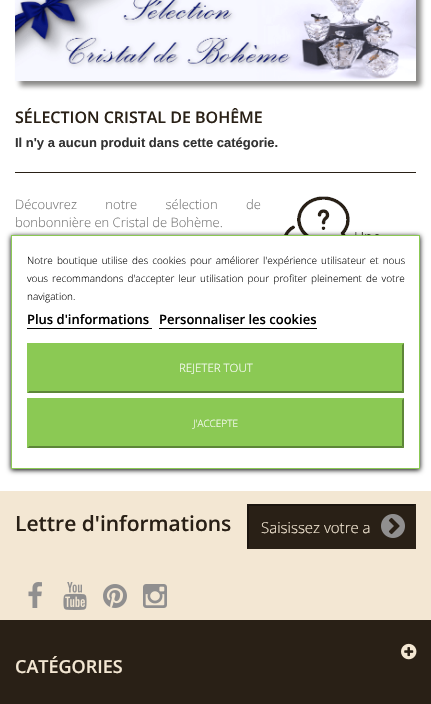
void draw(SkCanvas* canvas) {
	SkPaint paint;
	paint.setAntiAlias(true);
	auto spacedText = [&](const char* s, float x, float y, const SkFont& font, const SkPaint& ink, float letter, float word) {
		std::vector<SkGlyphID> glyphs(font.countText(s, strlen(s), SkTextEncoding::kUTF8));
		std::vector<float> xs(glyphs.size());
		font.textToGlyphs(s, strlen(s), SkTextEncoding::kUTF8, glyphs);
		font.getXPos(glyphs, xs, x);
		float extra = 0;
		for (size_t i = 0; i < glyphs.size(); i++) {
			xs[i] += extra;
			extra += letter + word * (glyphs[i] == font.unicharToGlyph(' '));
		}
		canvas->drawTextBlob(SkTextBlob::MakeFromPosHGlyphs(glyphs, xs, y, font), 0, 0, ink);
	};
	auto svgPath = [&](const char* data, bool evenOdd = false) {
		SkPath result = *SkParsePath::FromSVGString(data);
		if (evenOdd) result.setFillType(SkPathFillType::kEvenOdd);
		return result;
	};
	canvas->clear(0xffffffff);
	paint.setColor(0x80100d09);
	paint.setMaskFilter(SkMaskFilter::MakeBlur(kNormal_SkBlurStyle, 2.5));
	canvas->drawRect(SkRect::MakeXYWH(20, -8, 401, 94), paint);
	paint.setMaskFilter(nullptr);
	canvas->drawImageRect(SkImages::DeferredFromEncodedData(SkData::MakeFromFileName("img1.png")), SkRect::MakeXYWH(15, 0, 401, 81), SkSamplingOptions());
	paint.setColor(0xff292016);
	canvas->drawRect(SkRect::MakeXYWH(15, 172, 401, 1), paint);
	SkFont f1(fontMgr->matchFamilyStyle("Open Sans", SkFontStyle(600, SkFontStyle::kNormal_Width, SkFontStyle::kUpright_Slant)), 16);
	f1.setSubpixel(true);
	canvas->drawString("SÉLECTION CRISTAL DE BOHÊME", 15, 123, f1, paint);
	SkFont f2(fontMgr->matchFamilyStyle("Liberation Sans", SkFontStyle::Bold()), 13);
	f2.setSubpixel(true);
	paint.setColor(0xff333333);
	canvas->drawString("Il n'y a aucun produit dans cette catégorie.", 15, 147, f2, paint);
	SkFont f3(fontMgr->matchFamilyStyle("Open Sans", SkFontStyle(300, SkFontStyle::kNormal_Width, SkFontStyle::kUpright_Slant)), 13);
	f3.setSubpixel(true);
	paint.setColor(0xff777777);
	spacedText("Découvrez notre sélection de", 15, 209, f3, paint, 0, 25);
	canvas->drawString("bonbonnière en Cristal de Bohème.", 15, 227, f3, paint);
	canvas->drawImageRect(SkImages::DeferredFromEncodedData(SkData::MakeFromFileName("img2.png")), SkRect::MakeXYWH(282, 196, 113, 39), SkSamplingOptions());
	paint.setColor(0xff292016);
	canvas->drawRect(SkRect::MakeXYWH(0, 620, 431, 84), paint);
	paint.setColor(0xff000000);
	paint.setMaskFilter(SkMaskFilter::MakeBlur(kNormal_SkBlurStyle, 2.5));
	canvas->drawRect(SkRect::MakeXYWH(11, 236, 409, 234), paint);
	paint.setMaskFilter(nullptr);
	paint.setColor(0xffffffff);
	canvas->drawRect(SkRect::MakeXYWH(11.5, 235.5, 408, 233), paint);
	paint.setStroke(true);
	paint.setStrokeWidth(1);
	paint.setColor(0xff8bc954);
	canvas->drawRect(SkRect::MakeXYWH(11.5, 235.5, 408, 233), paint);
	SkFont f4(fontMgr->matchFamilyStyle("Open Sans", SkFontStyle(300, SkFontStyle::kNormal_Width, SkFontStyle::kUpright_Slant)), 10);
	f4.setSubpixel(true);
	paint.setStroke(false);
	paint.setColor(0xff000000);
	spacedText("Notre boutique utilise des cookies pour améliorer l'expérience utilisateur et nous", 27, 264, f4, paint, 0, 1.5);
	spacedText("vous recommandons d'accepter leur utilisation pour profiter pleinement de votre", 27, 282, f4, paint, 0, 1.5);
	canvas->drawString("navigation.", 27, 300, f4, paint);
	SkFont f5(fontMgr->matchFamilyStyle("Open Sans", SkFontStyle(600, SkFontStyle::kNormal_Width, SkFontStyle::kUpright_Slant)), 13);
	f5.setSubpixel(true);
	canvas->drawString("Plus d'informations", 27, 324, f5, paint);
	canvas->drawRect(SkRect::MakeXYWH(27, 328, 125, 1), paint);
	canvas->drawString("Personnaliser les cookies", 159, 324, f5, paint);
	canvas->drawRect(SkRect::MakeXYWH(159, 328, 158, 1), paint);
	paint.setColor(0xff8bc954);
	canvas->drawRect(SkRect::MakeXYWH(27, 343, 377, 50), paint);
	paint.setColor(0xff5d8638);
	canvas->drawPath(svgPath("M404 343V393L402 391V345Z"), paint);
	canvas->drawPath(svgPath("M404 393H27L29 391H402Z"), paint);
	paint.setColor(0xff8bc954);
	canvas->drawPath(svgPath("M27 393V343L29 345V391Z"), paint);
	SkFont f6(fontMgr->matchFamilyStyle("Open Sans", SkFontStyle(300, SkFontStyle::kNormal_Width, SkFontStyle::kUpright_Slant)), 11.5);
	f6.setSubpixel(true);
	paint.setColor(0xffffffff);
	canvas->drawString("REJETER TOUT", 179, 372, f6, paint);
	paint.setColor(0xff8bc954);
	canvas->drawRect(SkRect::MakeXYWH(27, 398, 377, 50), paint);
	paint.setColor(0xff5d8638);
	canvas->drawPath(svgPath("M404 398V448L402 446V400Z"), paint);
	canvas->drawPath(svgPath("M404 448H27L29 446H402Z"), paint);
	paint.setColor(0xff8bc954);
	canvas->drawPath(svgPath("M27 448V398L29 400V446Z"), paint);
	paint.setColor(0xffffffff);
	canvas->drawString("J'ACCEPTE", 193, 427, f4, paint);
	paint.setColor(0xfff3e7d3);
	canvas->drawRect(SkRect::MakeXYWH(0, 491, 431, 129), paint);
	canvas->drawImageRect(SkImages::DeferredFromEncodedData(SkData::MakeFromFileName("img3.png")), SkRect::MakeXYWH(28, 582, 14, 26), SkSamplingOptions());
	canvas->drawImageRect(SkImages::DeferredFromEncodedData(SkData::MakeFromFileName("img4.png")), SkRect::MakeXYWH(63, 582, 24, 28), SkSamplingOptions());
	canvas->drawImageRect(SkImages::DeferredFromEncodedData(SkData::MakeFromFileName("img5.png")), SkRect::MakeXYWH(103, 584, 24, 24), SkSamplingOptions());
	canvas->drawImageRect(SkImages::DeferredFromEncodedData(SkData::MakeFromFileName("img6.png")), SkRect::MakeXYWH(143, 584, 24, 24), SkSamplingOptions());
	SkFont f7(fontMgr->matchFamilyStyle("Open Sans", SkFontStyle(600, SkFontStyle::kNormal_Width, SkFontStyle::kUpright_Slant)), 21);
	f7.setSubpixel(true);
	paint.setColor(0xff292016);
	canvas->drawString("Lettre d'informations", 15, 531, f7, paint);
	canvas->drawRect(SkRect::MakeXYWH(247, 504, 169, 45), paint);
	paint.setColor(0xff1b150f);
	canvas->drawPath(svgPath("M247 504H416L414 506H249Z"), paint);
	paint.setColor(0xff292016);
	canvas->drawPath(svgPath("M416 504V549L414 547V506Z"), paint);
	paint.setColor(0xff1b150f);
	canvas->drawPath(svgPath("M247 549V504L249 506V547Z"), paint);
	SkFont f8(fontMgr->matchFamilyStyle("Open Sans", SkFontStyle(300, SkFontStyle::kNormal_Width, SkFontStyle::kUpright_Slant)), 15);
	f8.setSubpixel(true);
	paint.setColor(0xfff3e7d3);
	canvas->drawString("Saisissez votre a", 261, 533, f8, paint);
	canvas->drawImageRect(SkImages::DeferredFromEncodedData(SkData::MakeFromFileName("img7.png")), SkRect::MakeXYWH(381, 514, 24, 24), SkSamplingOptions());
	canvas->drawImageRect(SkImages::DeferredFromEncodedData(SkData::MakeFromFileName("img8.png")), SkRect::MakeXYWH(401, 643, 16, 17), SkSamplingOptions());
	SkFont f9(fontMgr->matchFamilyStyle("Open Sans", SkFontStyle(600, SkFontStyle::kNormal_Width, SkFontStyle::kUpright_Slant)), 18);
	f9.setSubpixel(true);
	canvas->drawString("CATÉGORIES", 15, 673, f9, paint);
}
